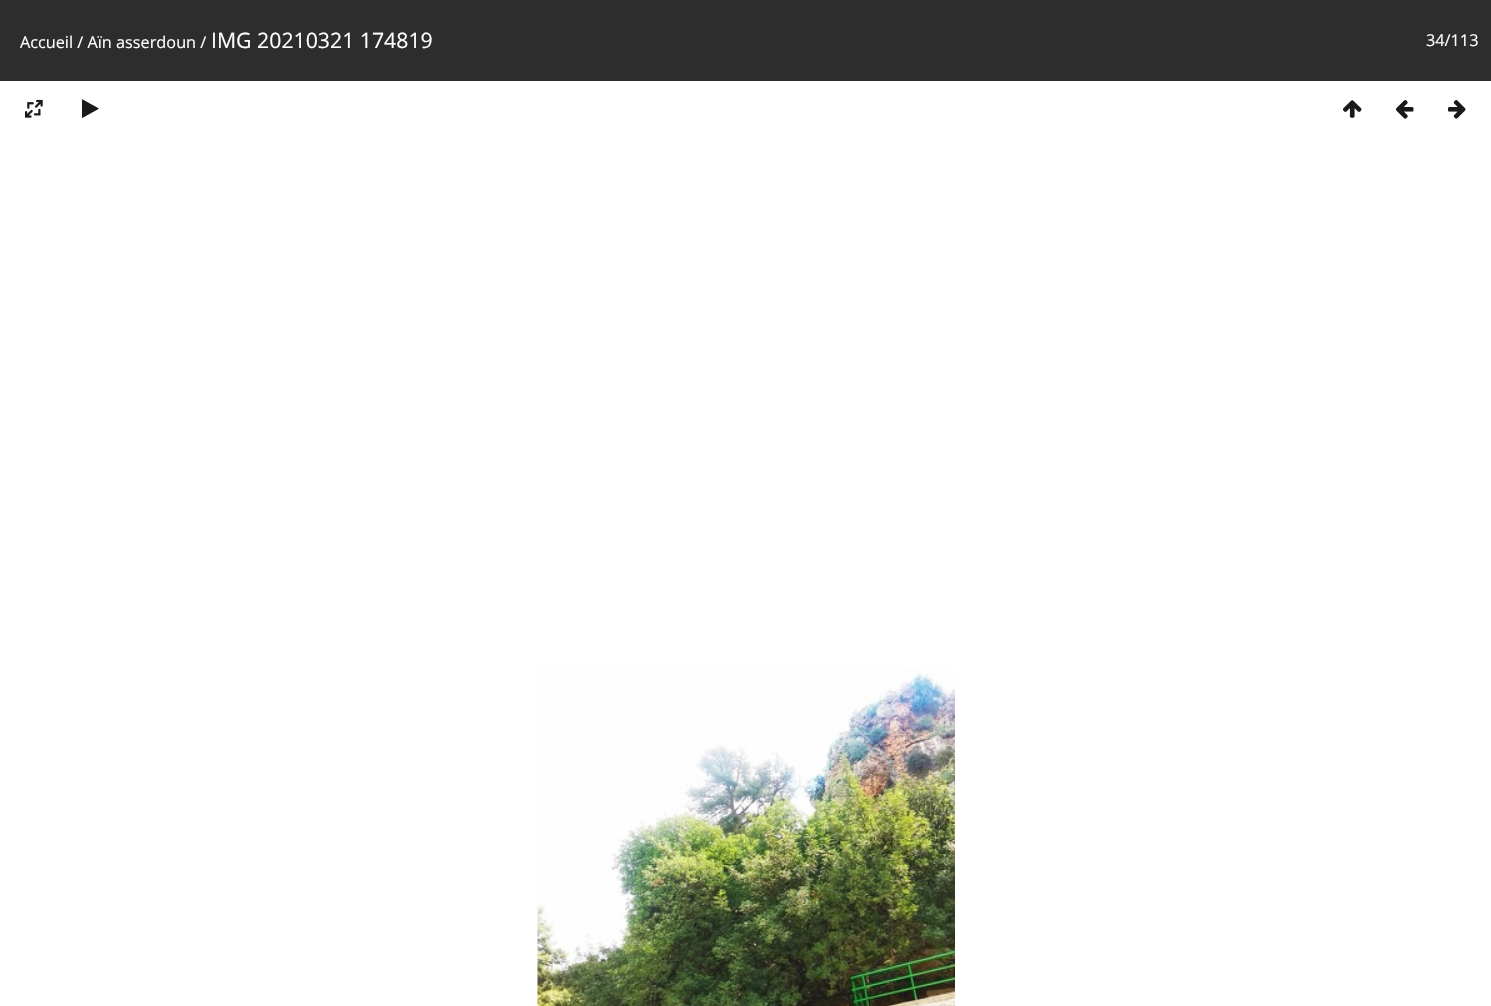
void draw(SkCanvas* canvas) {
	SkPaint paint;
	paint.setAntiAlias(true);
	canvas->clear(0xffffffff);
	paint.setColor(0xff2d2d2d);
	canvas->drawRect(SkRect::MakeXYWH(0, 0, 1491, 81), paint);
	SkFont f1(fontMgr->matchFamilyStyle("Open Sans", SkFontStyle::Normal()), 16.25);
	f1.setSubpixel(true);
	paint.setColor(0xffffffff);
	canvas->drawString("Accueil / Aïn asserdoun /", 20, 48, f1, paint);
	SkFont f2(fontMgr->matchFamilyStyle("Open Sans", SkFontStyle::Normal()), 21.25);
	f2.setSubpixel(true);
	canvas->drawString("IMG 20210321 174819", 211, 48, f2, paint);
	canvas->drawString("34/113", 1426, 46, f1, paint);
	canvas->drawImageRect(SkImages::DeferredFromEncodedData(SkData::MakeFromFileName("img1.png")), SkRect::MakeXYWH(25, 99, 18, 19), SkSamplingOptions());
	SkFont f3(fontMgr->matchFamilyStyle("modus", SkFontStyle::Normal()), 21.25);
	f3.setSubpixel(true);
	paint.setColor(0xff1a1a1a);
	canvas->drawString("▶", 82, 116, f3, paint);
	canvas->drawString("↑", 1343, 116, f3, paint);
	canvas->drawString("←", 1396, 116, f3, paint);
	canvas->drawString("→", 1448, 116, f3, paint);
	canvas->drawImageRect(SkImages::DeferredFromEncodedData(SkData::MakeFromFileName("img2.png")), SkRect::MakeXYWH(537, 668, 418, 338), SkSamplingOptions());
}
